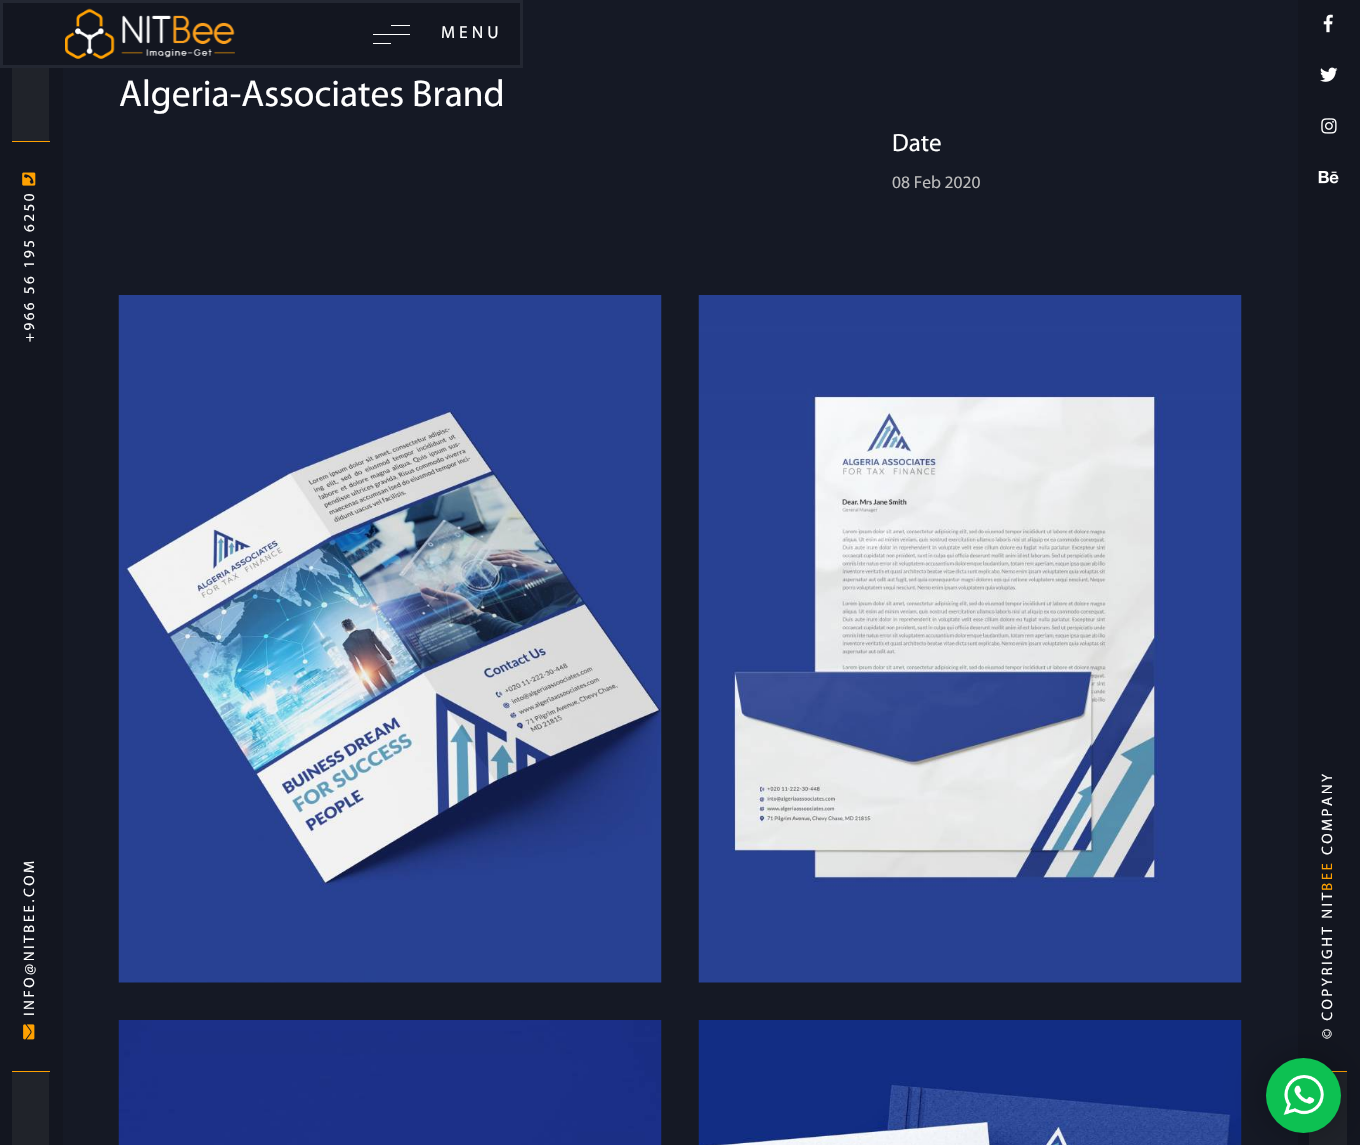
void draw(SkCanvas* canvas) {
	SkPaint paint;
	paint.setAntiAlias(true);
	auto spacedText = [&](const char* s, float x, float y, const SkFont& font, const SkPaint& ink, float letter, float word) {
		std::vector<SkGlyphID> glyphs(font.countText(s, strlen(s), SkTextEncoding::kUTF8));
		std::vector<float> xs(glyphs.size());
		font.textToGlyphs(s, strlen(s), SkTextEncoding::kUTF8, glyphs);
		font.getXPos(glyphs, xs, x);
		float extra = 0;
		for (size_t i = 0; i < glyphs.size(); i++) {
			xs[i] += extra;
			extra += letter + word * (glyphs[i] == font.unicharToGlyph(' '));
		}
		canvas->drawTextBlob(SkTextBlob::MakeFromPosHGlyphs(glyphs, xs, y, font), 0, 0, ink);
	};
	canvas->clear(0xff131620);
	paint.setColor(0xff151925);
	canvas->drawRect(SkRect::MakeXYWH(63, 0, 1235, 1145), paint);
	paint.setColor(0xff131620);
	canvas->drawRect(SkRect::MakeXYWH(63, 3, 457, 62), paint);
	paint.setStroke(true);
	paint.setStrokeWidth(3);
	paint.setColor(0xff232732);
	canvas->drawRect(SkRect::MakeXYWH(1.5, 1.5, 520, 65), paint);
	canvas->drawImageRect(SkImages::DeferredFromEncodedData(SkData::MakeFromFileName("img1.png")), SkRect::MakeXYWH(65, 8, 170, 51), SkSamplingOptions());
	paint.setStroke(false);
	paint.setColor(0xffffffff);
	canvas->drawRect(SkRect::MakeXYWH(391, 25, 19, 1), paint);
	canvas->drawRect(SkRect::MakeXYWH(373, 34, 37, 1), paint);
	canvas->drawRect(SkRect::MakeXYWH(373, 43, 18, 1), paint);
	SkFont f1(fontMgr->matchFamilyStyle("Myriad", SkFontStyle::Normal()), 17.5);
	f1.setSubpixel(true);
	spacedText("MENU", 441, 38, f1, paint, 4, 0);
	SkFont f2(fontMgr->matchFamilyStyle("Myriad", SkFontStyle::Normal()), 37.5);
	f2.setSubpixel(true);
	canvas->drawString("Algeria-Associates Brand", 119, 106, f2, paint);
	SkFont f3(fontMgr->matchFamilyStyle("Myriad", SkFontStyle::Normal()), 25);
	f3.setSubpixel(true);
	canvas->drawString("Date", 892, 151, f3, paint);
	paint.setColor(0xffbcbcbc);
	canvas->drawString("08 Feb 2020", 892, 188, f1, paint);
	canvas->drawImageRect(SkImages::DeferredFromEncodedData(SkData::MakeFromFileName("img2.png")), SkRect::MakeXYWH(118, 295, 544, 688), SkSamplingOptions());
	canvas->drawImageRect(SkImages::DeferredFromEncodedData(SkData::MakeFromFileName("img3.png")), SkRect::MakeXYWH(698, 295, 544, 688), SkSamplingOptions());
	canvas->drawImageRect(SkImages::DeferredFromEncodedData(SkData::MakeFromFileName("img4.png")), SkRect::MakeXYWH(118, 1020, 544, 125), SkSamplingOptions());
	canvas->drawImageRect(SkImages::DeferredFromEncodedData(SkData::MakeFromFileName("img5.png")), SkRect::MakeXYWH(698, 1020, 544, 125), SkSamplingOptions());
	paint.setColor(0xff20232a);
	canvas->drawRect(SkRect::MakeXYWH(12, 68, 37, 73), paint);
	paint.setColor(0xffffa101);
	canvas->drawRect(SkRect::MakeXYWH(12, 141, 38, 1), paint);
	canvas->drawImageRect(SkImages::DeferredFromEncodedData(SkData::MakeFromFileName("img6.png")), SkRect::MakeXYWH(22, 172, 14, 14), SkSamplingOptions());
	SkFont f4(fontMgr->matchFamilyStyle("Myriad", SkFontStyle::Normal()), 15);
	f4.setSubpixel(true);
	paint.setColor(0xffffffff);
	canvas->save();
	canvas->rotate(-90, 34, 342);
	spacedText("+966 56 195 6250", 34, 342, f4, paint, 2.5, 0);
	canvas->restore();
	canvas->save();
	canvas->rotate(-90, 34, 1016);
	spacedText("INFO@NITBEE.COM", 34, 1016, f4, paint, 2.5, 0);
	canvas->restore();
	canvas->drawImageRect(SkImages::DeferredFromEncodedData(SkData::MakeFromFileName("img7.png")), SkRect::MakeXYWH(23, 1024, 12, 16), SkSamplingOptions());
	paint.setColor(0xff20232a);
	canvas->drawRect(SkRect::MakeXYWH(12, 1072, 37, 73), paint);
	paint.setColor(0xffffa101);
	canvas->drawRect(SkRect::MakeXYWH(12, 1071, 38, 1), paint);
	canvas->drawImageRect(SkImages::DeferredFromEncodedData(SkData::MakeFromFileName("img8.png")), SkRect::MakeXYWH(1323, 14, 10, 19), SkSamplingOptions());
	canvas->drawImageRect(SkImages::DeferredFromEncodedData(SkData::MakeFromFileName("img9.png")), SkRect::MakeXYWH(1320, 67, 18, 15), SkSamplingOptions());
	canvas->drawImageRect(SkImages::DeferredFromEncodedData(SkData::MakeFromFileName("img10.png")), SkRect::MakeXYWH(1321, 118, 16, 16), SkSamplingOptions());
	canvas->drawImageRect(SkImages::DeferredFromEncodedData(SkData::MakeFromFileName("img11.png")), SkRect::MakeXYWH(1318, 171, 21, 13), SkSamplingOptions());
	paint.setColor(0xffffffff);
	canvas->save();
	canvas->rotate(-90, 1332, 855);
	spacedText("COMPANY", 1332, 855, f4, paint, 2.5, 0);
	canvas->restore();
	paint.setColor(0xffffa101);
	canvas->save();
	canvas->rotate(-90, 1332, 891);
	spacedText("BEE", 1332, 891, f4, paint, 2.5, 0);
	canvas->restore();
	paint.setColor(0xffffffff);
	canvas->save();
	canvas->rotate(-90, 1332, 1039);
	spacedText("© COPYRIGHT NIT", 1332, 1039, f4, paint, 2.5, 0);
	canvas->restore();
	paint.setColor(0xff20232a);
	canvas->drawRect(SkRect::MakeXYWH(1309, 1072, 38, 73), paint);
	paint.setColor(0xffffa101);
	canvas->drawRect(SkRect::MakeXYWH(1331, 1071, 16, 1), paint);
	paint.setColor(0x4d000000);
	paint.setMaskFilter(SkMaskFilter::MakeBlur(kNormal_SkBlurStyle, 19));
	canvas->drawRoundRect(SkRect::MakeXYWH(1266, 1058, 75, 75), 37.5, 37.5, paint);
	paint.setMaskFilter(nullptr);
	paint.setColor(0xff0dc152);
	canvas->drawCircle(1303.5, 1095.5, 37.5, paint);
	canvas->drawImageRect(SkImages::DeferredFromEncodedData(SkData::MakeFromFileName("img12.png")), SkRect::MakeXYWH(1283, 1075, 41, 40), SkSamplingOptions());
}
